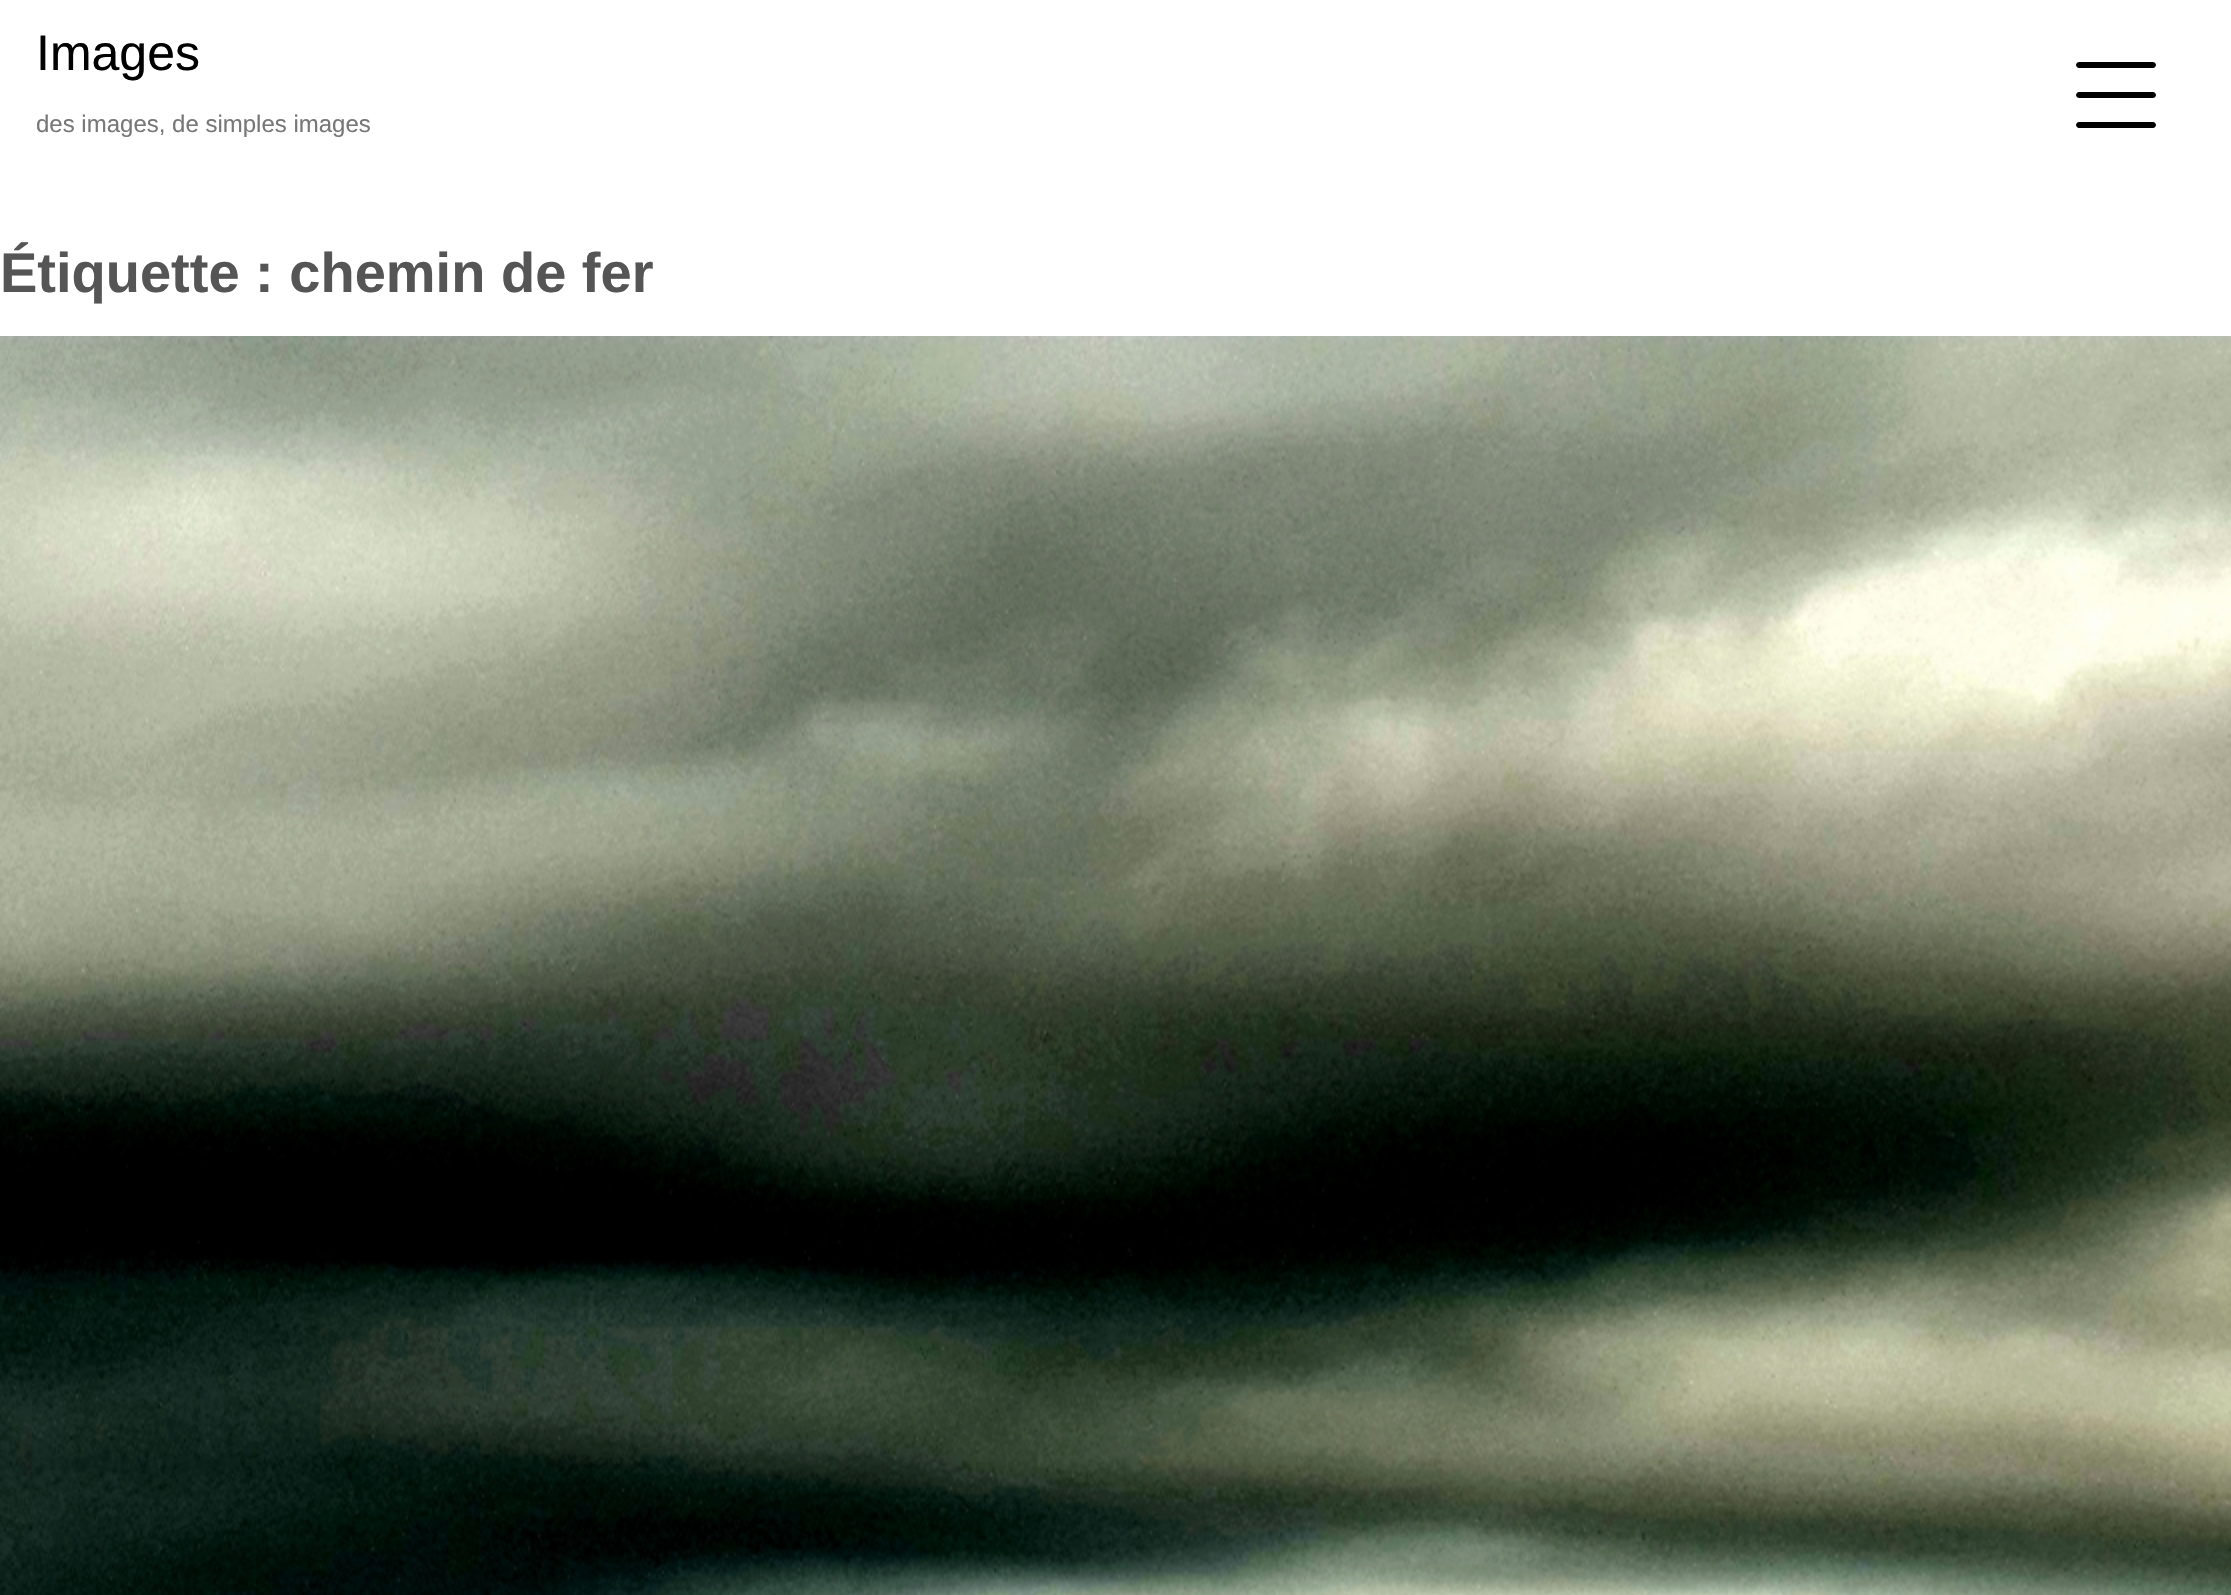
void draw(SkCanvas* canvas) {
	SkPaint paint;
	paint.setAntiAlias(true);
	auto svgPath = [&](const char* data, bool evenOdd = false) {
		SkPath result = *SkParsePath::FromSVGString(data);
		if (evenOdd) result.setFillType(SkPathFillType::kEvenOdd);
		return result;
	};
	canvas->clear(0xffffffff);
	SkFont f1(fontMgr->matchFamilyStyle("Liberation Sans", SkFontStyle::Normal()), 50);
	f1.setSubpixel(true);
	paint.setColor(0xff000000);
	canvas->drawString("Images", 36, 70, f1, paint);
	SkFont f2(fontMgr->matchFamilyStyle("Liberation Sans", SkFontStyle::Normal()), 24);
	f2.setSubpixel(true);
	paint.setColor(0xff777777);
	canvas->drawString("des images, de simples images", 36, 132, f2, paint);
	paint.setColor(0xff000000);
	canvas->drawPath(svgPath("M2079 62H2116V68H2079C2077.5 68 2076 66.5 2076 65C2076 63.5 2077.5 62 2079 62Z"), paint);
	canvas->drawPath(svgPath("M2116 62H2153C2154.5 62 2156 63.5 2156 65C2156 66.5 2154.5 68 2153 68H2116Z"), paint);
	canvas->drawPath(svgPath("M2079 92H2116V98H2079C2077.5 98 2076 96.5 2076 95C2076 93.5 2077.5 92 2079 92Z"), paint);
	canvas->drawPath(svgPath("M2116 92H2153C2154.5 92 2156 93.5 2156 95C2156 96.5 2154.5 98 2153 98H2116Z"), paint);
	canvas->drawPath(svgPath("M2079 122H2116V128H2079C2077.5 128 2076 126.5 2076 125C2076 123.5 2077.5 122 2079 122Z"), paint);
	canvas->drawPath(svgPath("M2116 122H2153C2154.5 122 2156 123.5 2156 125C2156 126.5 2154.5 128 2153 128H2116Z"), paint);
	SkFont f3(fontMgr->matchFamilyStyle("Liberation Sans", SkFontStyle::Bold()), 56);
	f3.setSubpixel(true);
	paint.setColor(0xff555555);
	canvas->drawString("Étiquette : chemin de fer", 0, 292, f3, paint);
	canvas->drawImageRect(SkImages::DeferredFromEncodedData(SkData::MakeFromFileName("img1.png")), SkRect::MakeXYWH(0, 336, 2231, 1259), SkSamplingOptions());
}
